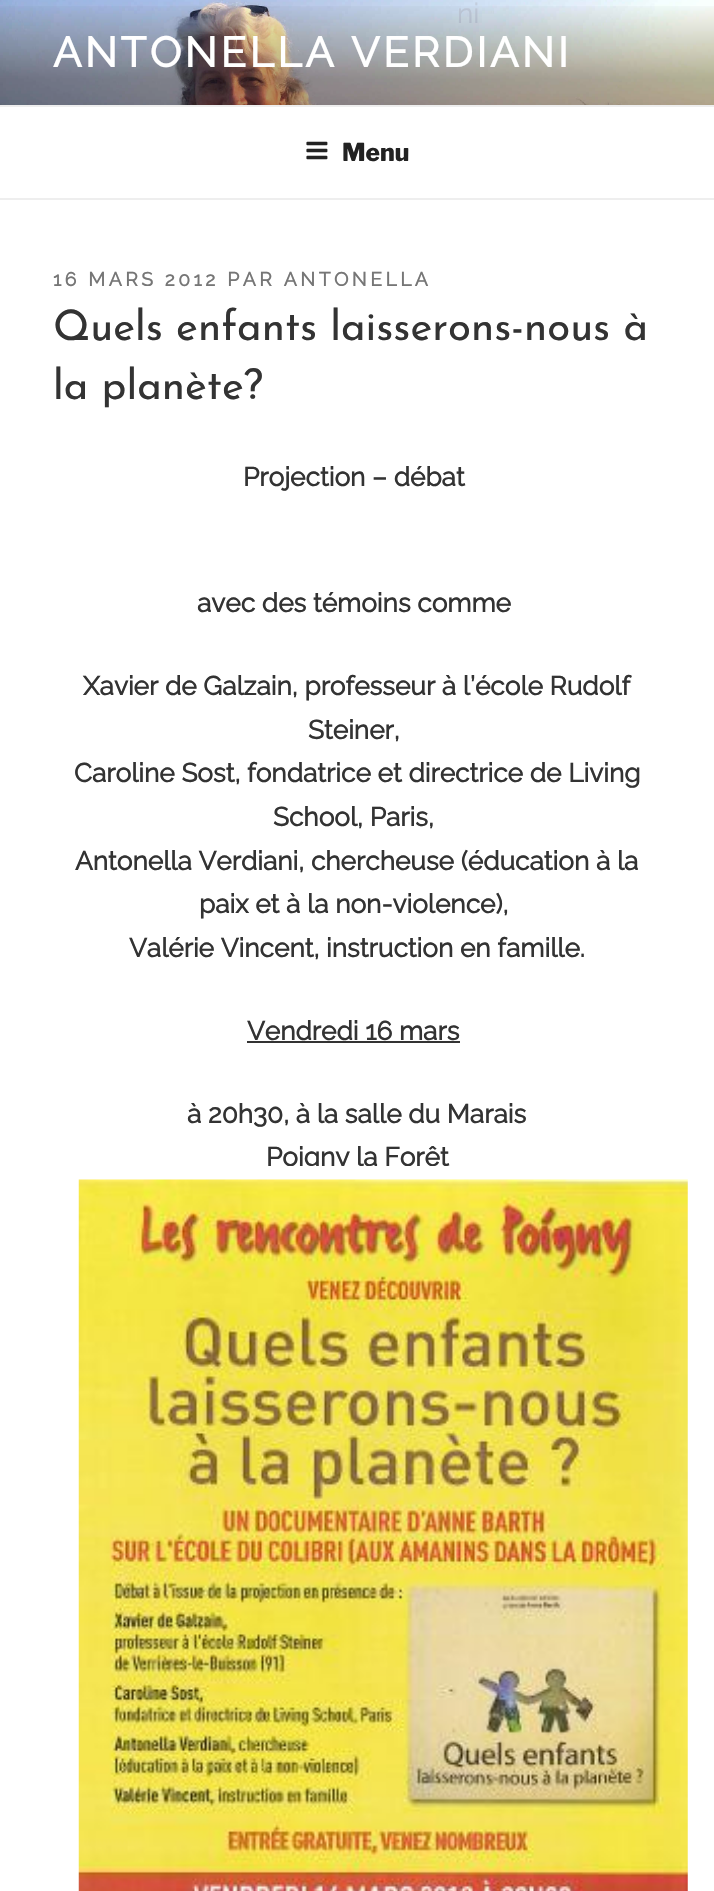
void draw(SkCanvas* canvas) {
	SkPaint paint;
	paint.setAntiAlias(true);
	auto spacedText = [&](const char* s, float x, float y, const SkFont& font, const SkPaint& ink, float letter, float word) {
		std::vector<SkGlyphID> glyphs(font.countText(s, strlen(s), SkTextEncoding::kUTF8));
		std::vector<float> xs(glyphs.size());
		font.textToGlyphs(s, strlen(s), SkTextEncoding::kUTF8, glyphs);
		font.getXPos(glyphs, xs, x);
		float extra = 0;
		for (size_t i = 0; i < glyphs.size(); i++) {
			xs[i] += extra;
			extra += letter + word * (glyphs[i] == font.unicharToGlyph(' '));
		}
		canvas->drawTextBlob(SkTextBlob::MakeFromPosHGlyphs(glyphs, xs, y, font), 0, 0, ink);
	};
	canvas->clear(0xffffffff);
	canvas->drawImageRect(SkImages::DeferredFromEncodedData(SkData::MakeFromFileName("img1.png")), SkRect::MakeXYWH(0, 0, 714, 105), SkSamplingOptions());
	SkFont f1(fontMgr->matchFamilyStyle("Raleway", SkFontStyle(100, SkFontStyle::kNormal_Width, SkFontStyle::kUpright_Slant)), 28);
	f1.setSubpixel(true);
	paint.setColor(0xffc3cddd);
	canvas->drawString("ni", 457, 23, f1, paint);
	{
		const SkColor colors[] = {0x00000000, 0x4d000000, 0x4d000000};
		const float stops[] = {0, 0.75, 1};
		const SkPoint ends[] = {{357, 0}, {357, 105}};
		paint.setShader(SkGradientShader::MakeLinear(ends, colors, stops, 3, SkTileMode::kClamp));
		paint.setAlpha(255);
	}
	canvas->drawRect(SkRect::MakeXYWH(0, 6, 714, 99), paint);
	SkFont f2(fontMgr->matchFamilyStyle("Raleway", SkFontStyle::Bold()), 42);
	f2.setSubpixel(true);
	paint.setShader(nullptr);
	paint.setColor(0xffffffff);
	spacedText("ANTONELLA VERDIANI", 53, 67, f2, paint, 3.4, 0);
	paint.setColor(0xffeeeeee);
	canvas->drawRect(SkRect::MakeXYWH(0, 105, 714, 2), paint);
	canvas->drawRect(SkRect::MakeXYWH(0, 198, 714, 2), paint);
	canvas->drawImageRect(SkImages::DeferredFromEncodedData(SkData::MakeFromFileName("img2.png")), SkRect::MakeXYWH(306, 141, 22, 19), SkSamplingOptions());
	SkFont f3(fontMgr->matchFamilyStyle("Libre Franklin", SkFontStyle(100, SkFontStyle::kNormal_Width, SkFontStyle::kUpright_Slant)), 24.5);
	f3.setSubpixel(true);
	paint.setColor(0xff222222);
	canvas->drawString("Menu", 342, 161, f3, paint);
	SkFont f4(fontMgr->matchFamilyStyle("Raleway", SkFontStyle::Bold()), 19.25);
	f4.setSubpixel(true);
	paint.setColor(0xff767676);
	spacedText("16 MARS 2012 PAR ANTONELLA", 53, 286, f4, paint, 3.5, 0);
	SkFont f5(fontMgr->matchFamilyStyle("Josefin Sans", SkFontStyle(100, SkFontStyle::kNormal_Width, SkFontStyle::kUpright_Slant)), 42);
	f5.setSubpixel(true);
	paint.setColor(0xff333333);
	canvas->drawString("Quels enfants laisserons-nous à", 53, 340, f5, paint);
	canvas->drawString("la planète?", 53, 399, f5, paint);
	SkFont f6(fontMgr->matchFamilyStyle("Raleway", SkFontStyle::Bold()), 26.25);
	f6.setSubpixel(true);
	canvas->drawString("Projection – débat", 243, 486, f6, paint);
	canvas->drawString("avec des témoins comme", 197, 612, f6, paint);
	canvas->drawString("Xavier de Galzain, professeur à l’école Rudolf", 83, 695, f6, paint);
	canvas->drawString("Steiner,", 308, 739, f6, paint);
	canvas->drawString("Caroline Sost, fondatrice et directrice de Living", 74, 782, f6, paint);
	canvas->drawString("School, Paris,", 273, 826, f6, paint);
	canvas->drawString("Antonella Verdiani, chercheuse (éducation à la", 75, 870, f6, paint);
	canvas->drawString("paix et à la non-violence),", 199, 913, f6, paint);
	canvas->drawString("Valérie Vincent, instruction en famille.", 129, 957, f6, paint);
	canvas->drawString("Vendredi 16 mars", 247, 1040, f6, paint);
	canvas->drawRect(SkRect::MakeXYWH(247, 1041, 213, 2), paint);
	canvas->drawString("à 20h30, à la salle du Marais", 187, 1123, f6, paint);
	canvas->drawString("Poigny la Forêt", 266, 1166, f6, paint);
	paint.setStroke(true);
	paint.setStrokeWidth(14);
	paint.setColor(0xffffffff);
	canvas->drawRect(SkRect::MakeXYWH(72, 1173, 623, 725), paint);
	canvas->drawImageRect(SkImages::DeferredFromEncodedData(SkData::MakeFromFileName("img3.png")), SkRect::MakeXYWH(78, 1179, 610, 712), SkSamplingOptions());
}
